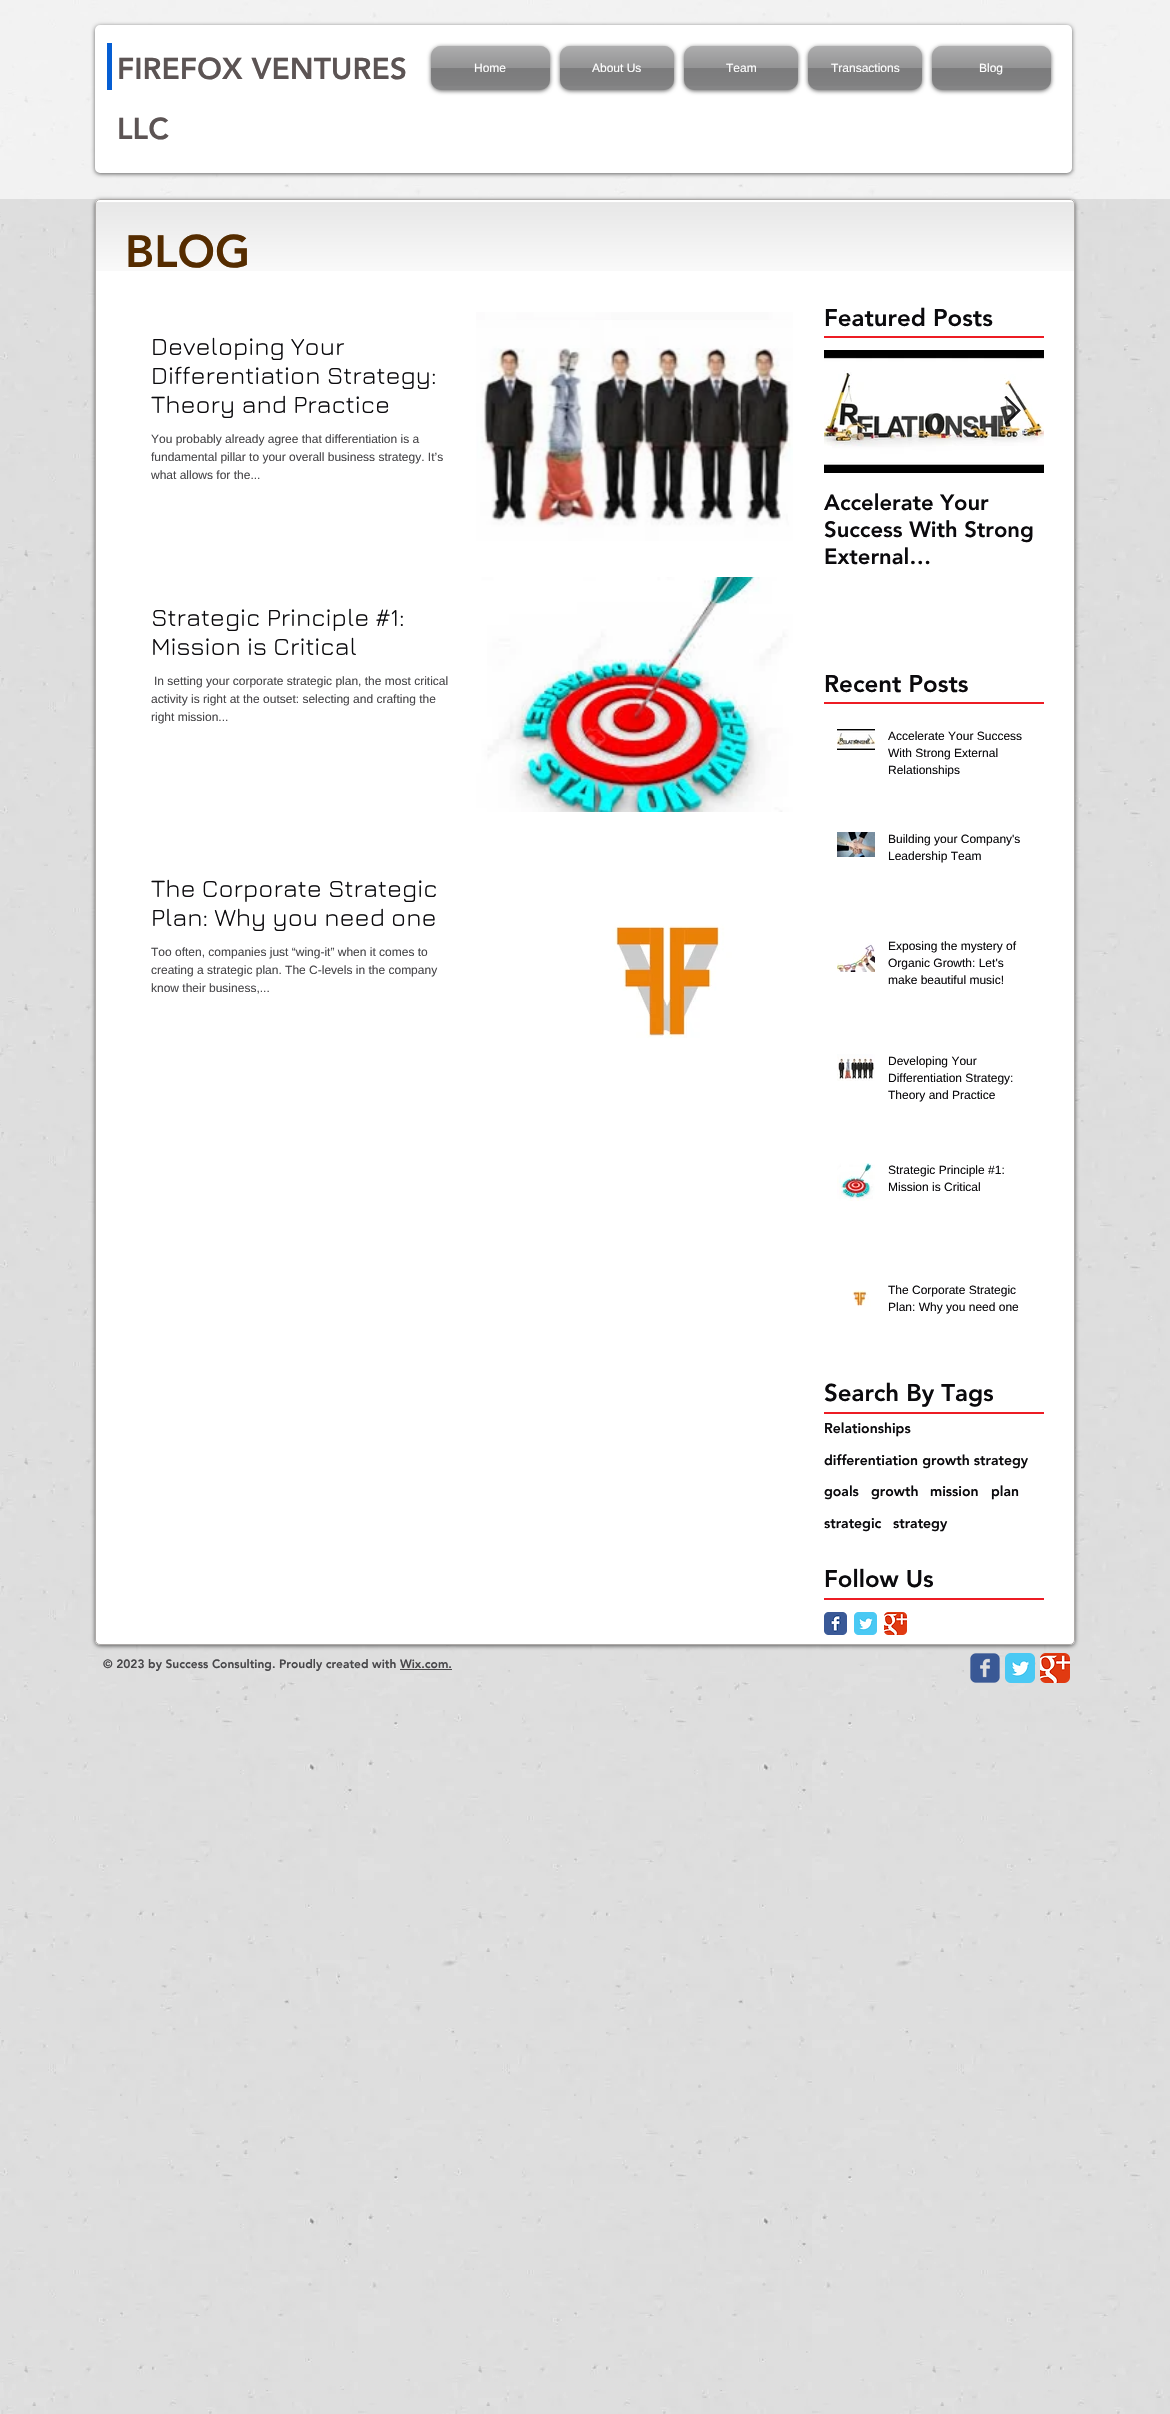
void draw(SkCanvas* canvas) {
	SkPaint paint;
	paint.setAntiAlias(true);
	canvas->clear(0xffffffff);
	canvas->drawImageRect(SkImages::DeferredFromEncodedData(SkData::MakeFromFileName("img1.png")), SkRect::MakeXYWH(0, 0, 1170, 2414), SkSamplingOptions());
	paint.setColor(0x99ffffff);
	canvas->drawRect(SkRect::MakeXYWH(0, 0, 1170, 199), paint);
	paint.setColor(0x99000000);
	paint.setMaskFilter(SkMaskFilter::MakeBlur(kNormal_SkBlurStyle, 2));
	canvas->drawRoundRect(SkRect::MakeXYWH(95, 26, 977, 148), 5, 5, paint);
	paint.setMaskFilter(nullptr);
	paint.setColor(0xffffffff);
	canvas->drawRoundRect(SkRect::MakeXYWH(96, 26, 975, 146), 4, 4, paint);
	paint.setStroke(true);
	paint.setStrokeWidth(2);
	canvas->drawRoundRect(SkRect::MakeXYWH(96, 26, 975, 146), 4, 4, paint);
	paint.setStroke(false);
	paint.setColor(0xff055ed3);
	canvas->drawRect(SkRect::MakeXYWH(107, 43, 5, 47), paint);
	SkFont f1(fontMgr->matchFamilyStyle("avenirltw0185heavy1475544", SkFontStyle(900, SkFontStyle::kNormal_Width, SkFontStyle::kUpright_Slant)), 30);
	f1.setSubpixel(true);
	paint.setColor(0xff5c5454);
	canvas->drawString("FIREFOX VENTURES", 117, 79, f1, paint);
	canvas->drawString("LLC", 117, 139, f1, paint);
	paint.setColor(0x99000000);
	paint.setMaskFilter(SkMaskFilter::MakeBlur(kNormal_SkBlurStyle, 2));
	canvas->drawRoundRect(SkRect::MakeXYWH(431, 47, 119, 44), 10, 10, paint);
	paint.setMaskFilter(nullptr);
	paint.setColor(0xff858586);
	canvas->drawRoundRect(SkRect::MakeXYWH(431, 46, 119, 44), 10, 10, paint);
	canvas->drawImageRect(SkImages::DeferredFromEncodedData(SkData::MakeFromFileName("img2.png")), SkRect::MakeXYWH(431, 46, 119, 40), SkSamplingOptions());
	SkFont f2(fontMgr->matchFamilyStyle("Liberation Sans", SkFontStyle::Normal()), 12);
	f2.setSubpixel(true);
	paint.setColor(0xffffffff);
	canvas->drawString("Home", 474, 72, f2, paint);
	paint.setColor(0x99000000);
	paint.setMaskFilter(SkMaskFilter::MakeBlur(kNormal_SkBlurStyle, 2));
	canvas->drawRoundRect(SkRect::MakeXYWH(560, 47, 114, 44), 10, 10, paint);
	paint.setMaskFilter(nullptr);
	paint.setColor(0xff858586);
	canvas->drawRoundRect(SkRect::MakeXYWH(560, 46, 114, 44), 10, 10, paint);
	canvas->drawImageRect(SkImages::DeferredFromEncodedData(SkData::MakeFromFileName("img3.png")), SkRect::MakeXYWH(560, 46, 114, 40), SkSamplingOptions());
	paint.setColor(0xffffffff);
	canvas->drawString("About Us", 592, 72, f2, paint);
	paint.setColor(0x99000000);
	paint.setMaskFilter(SkMaskFilter::MakeBlur(kNormal_SkBlurStyle, 2));
	canvas->drawRoundRect(SkRect::MakeXYWH(684, 47, 114, 44), 10, 10, paint);
	paint.setMaskFilter(nullptr);
	paint.setColor(0xff858586);
	canvas->drawRoundRect(SkRect::MakeXYWH(684, 46, 114, 44), 10, 10, paint);
	canvas->drawImageRect(SkImages::DeferredFromEncodedData(SkData::MakeFromFileName("img4.png")), SkRect::MakeXYWH(684, 46, 114, 40), SkSamplingOptions());
	paint.setColor(0xffffffff);
	canvas->drawString("Team", 726, 72, f2, paint);
	paint.setColor(0x99000000);
	paint.setMaskFilter(SkMaskFilter::MakeBlur(kNormal_SkBlurStyle, 2));
	canvas->drawRoundRect(SkRect::MakeXYWH(808, 47, 114, 44), 10, 10, paint);
	paint.setMaskFilter(nullptr);
	paint.setColor(0xff858586);
	canvas->drawRoundRect(SkRect::MakeXYWH(808, 46, 114, 44), 10, 10, paint);
	canvas->drawImageRect(SkImages::DeferredFromEncodedData(SkData::MakeFromFileName("img4.png")), SkRect::MakeXYWH(808, 46, 114, 40), SkSamplingOptions());
	paint.setColor(0xffffffff);
	canvas->drawString("Transactions", 831, 72, f2, paint);
	paint.setColor(0x99000000);
	paint.setMaskFilter(SkMaskFilter::MakeBlur(kNormal_SkBlurStyle, 2));
	canvas->drawRoundRect(SkRect::MakeXYWH(932, 47, 119, 44), 10, 10, paint);
	paint.setMaskFilter(nullptr);
	paint.setColor(0xff858586);
	canvas->drawRoundRect(SkRect::MakeXYWH(932, 46, 119, 44), 10, 10, paint);
	canvas->drawImageRect(SkImages::DeferredFromEncodedData(SkData::MakeFromFileName("img5.png")), SkRect::MakeXYWH(932, 46, 119, 40), SkSamplingOptions());
	paint.setColor(0xffffffff);
	canvas->drawString("Blog", 979, 72, f2, paint);
	paint.setColor(0x99000000);
	paint.setMaskFilter(SkMaskFilter::MakeBlur(kNormal_SkBlurStyle, 2));
	canvas->drawRoundRect(SkRect::MakeXYWH(95, 200, 980, 1446), 5, 5, paint);
	paint.setMaskFilter(nullptr);
	paint.setColor(0xffffffff);
	canvas->drawRoundRect(SkRect::MakeXYWH(95, 199, 980, 1446), 5, 5, paint);
	canvas->drawImageRect(SkImages::DeferredFromEncodedData(SkData::MakeFromFileName("img6.png")), SkRect::MakeXYWH(95, 202, 980, 69), SkSamplingOptions());
	paint.setStroke(true);
	paint.setStrokeWidth(1);
	paint.setColor(0xffaca9a7);
	canvas->drawRoundRect(SkRect::MakeXYWH(95.5, 199.5, 979, 1445), 4.5, 4.5, paint);
	SkFont f3(fontMgr->matchFamilyStyle("avenirltw0185heavy1475544", SkFontStyle(900, SkFontStyle::kNormal_Width, SkFontStyle::kUpright_Slant)), 45);
	f3.setSubpixel(true);
	paint.setStroke(false);
	paint.setColor(0xff552c00);
	canvas->drawString("BLOG", 125, 267, f3, paint);
	SkFont f4(fontMgr->matchFamilyStyle("avenirltw0185heavy1475544", SkFontStyle(900, SkFontStyle::kNormal_Width, SkFontStyle::kUpright_Slant)), 24);
	f4.setSubpixel(true);
	paint.setColor(0xff0b0a0d);
	canvas->drawString("Featured Posts", 824, 326, f4, paint);
	SkFont f5(fontMgr->matchFamilyStyle("Jura", SkFontStyle::Normal()), 25);
	f5.setSubpixel(true);
	canvas->drawString("Developing Your", 151, 355, f5, paint);
	canvas->drawString("Differentiation Strategy:", 151, 384, f5, paint);
	canvas->drawString("Theory and Practice", 151, 413, f5, paint);
	paint.setColor(0xff48474a);
	canvas->drawString("You probably already agree that differentiation is a", 151, 443, f2, paint);
	canvas->drawString("fundamental pillar to your overall business strategy. It’s", 151, 461, f2, paint);
	canvas->drawString("what allows for the...", 151, 479, f2, paint);
	canvas->drawImageRect(SkImages::DeferredFromEncodedData(SkData::MakeFromFileName("img7.png")), SkRect::MakeXYWH(476, 312, 317, 8), SkSamplingOptions());
	canvas->drawImageRect(SkImages::DeferredFromEncodedData(SkData::MakeFromFileName("img8.png")), SkRect::MakeXYWH(476, 320, 317, 221), SkSamplingOptions());
	paint.setColor(0xff0b0a0d);
	canvas->drawString("Strategic Principle #1:", 151, 626, f5, paint);
	canvas->drawString("Mission is Critical", 151, 655, f5, paint);
	paint.setColor(0xff48474a);
	canvas->drawString("In setting your corporate strategic plan, the most critical", 154, 685, f2, paint);
	canvas->drawString("activity is right at the outset: selecting and crafting the", 151, 703, f2, paint);
	canvas->drawString("right mission...", 151, 721, f2, paint);
	canvas->drawImageRect(SkImages::DeferredFromEncodedData(SkData::MakeFromFileName("img9.png")), SkRect::MakeXYWH(476, 577, 317, 235), SkSamplingOptions());
	paint.setColor(0xff0b0a0d);
	canvas->drawString("The Corporate Strategic", 151, 897, f5, paint);
	canvas->drawString("Plan: Why you need one", 151, 926, f5, paint);
	paint.setColor(0xff48474a);
	canvas->drawString("Too often, companies just “wing-it” when it comes to", 151, 956, f2, paint);
	canvas->drawString("creating a strategic plan. The C-levels in the company", 151, 974, f2, paint);
	canvas->drawString("know their business,...", 151, 992, f2, paint);
	canvas->drawImageRect(SkImages::DeferredFromEncodedData(SkData::MakeFromFileName("img10.png")), SkRect::MakeXYWH(581, 883, 176, 190), SkSamplingOptions());
	paint.setColor(0xffed1c24);
	canvas->drawRect(SkRect::MakeXYWH(824, 336, 220, 2), paint);
	canvas->drawImageRect(SkImages::DeferredFromEncodedData(SkData::MakeFromFileName("img12.png")), SkRect::MakeXYWH(824, 350, 220, 123), SkSamplingOptions());
	canvas->drawImageRect(SkImages::DeferredFromEncodedData(SkData::MakeFromFileName("img11.png")), SkRect::MakeXYWH(1004, 396, 17, 29), SkSamplingOptions());
	SkFont f6(fontMgr->matchFamilyStyle("avenirltw0185heavy1475544", SkFontStyle(900, SkFontStyle::kNormal_Width, SkFontStyle::kUpright_Slant)), 22);
	f6.setSubpixel(true);
	paint.setColor(0xff0b0a0d);
	canvas->drawString("Accelerate Your", 824, 510, f6, paint);
	canvas->drawString("Success With Strong", 824, 537, f6, paint);
	canvas->drawString("External…", 824, 564, f6, paint);
	canvas->drawString("Recent Posts", 824, 692, f4, paint);
	paint.setColor(0xffed1c24);
	canvas->drawRect(SkRect::MakeXYWH(824, 702, 220, 2), paint);
	canvas->drawImageRect(SkImages::DeferredFromEncodedData(SkData::MakeFromFileName("img13.png")), SkRect::MakeXYWH(837, 729, 38, 21), SkSamplingOptions());
	paint.setColor(0xff0b0a0d);
	canvas->drawString("Accelerate Your Success", 888, 740, f2, paint);
	canvas->drawString("With Strong External", 888, 757, f2, paint);
	canvas->drawString("Relationships", 888, 774, f2, paint);
	canvas->drawImageRect(SkImages::DeferredFromEncodedData(SkData::MakeFromFileName("img14.png")), SkRect::MakeXYWH(837, 832, 38, 25), SkSamplingOptions());
	canvas->drawString("Building your Company's", 888, 843, f2, paint);
	canvas->drawString("Leadership Team", 888, 860, f2, paint);
	canvas->drawImageRect(SkImages::DeferredFromEncodedData(SkData::MakeFromFileName("img15.png")), SkRect::MakeXYWH(837, 942, 38, 30), SkSamplingOptions());
	canvas->drawString("Exposing the mystery of", 888, 950, f2, paint);
	canvas->drawString("Organic Growth: Let's", 888, 967, f2, paint);
	canvas->drawString("make beautiful music!", 888, 984, f2, paint);
	canvas->drawImageRect(SkImages::DeferredFromEncodedData(SkData::MakeFromFileName("img16.png")), SkRect::MakeXYWH(837, 1054, 38, 27), SkSamplingOptions());
	canvas->drawString("Developing Your", 888, 1065, f2, paint);
	canvas->drawString("Differentiation Strategy:", 888, 1082, f2, paint);
	canvas->drawString("Theory and Practice", 888, 1099, f2, paint);
	canvas->drawImageRect(SkImages::DeferredFromEncodedData(SkData::MakeFromFileName("img17.png")), SkRect::MakeXYWH(837, 1163, 38, 38), SkSamplingOptions());
	canvas->drawString("Strategic Principle #1:", 888, 1174, f2, paint);
	canvas->drawString("Mission is Critical", 888, 1191, f2, paint);
	canvas->drawImageRect(SkImages::DeferredFromEncodedData(SkData::MakeFromFileName("img18.png")), SkRect::MakeXYWH(849, 1287, 22, 24), SkSamplingOptions());
	canvas->drawString("The Corporate Strategic", 888, 1294, f2, paint);
	canvas->drawString("Plan: Why you need one", 888, 1311, f2, paint);
	canvas->drawString("Search By Tags", 824, 1401, f4, paint);
	paint.setColor(0xffed1c24);
	canvas->drawRect(SkRect::MakeXYWH(824, 1412, 220, 2), paint);
	SkFont f7(fontMgr->matchFamilyStyle("avenirltw0185heavy1475544", SkFontStyle(900, SkFontStyle::kNormal_Width, SkFontStyle::kUpright_Slant)), 14);
	f7.setSubpixel(true);
	paint.setColor(0xff0b0a0d);
	canvas->drawString("Relationships", 824, 1433, f7, paint);
	canvas->drawString("differentiation growth strategy", 824, 1465, f7, paint);
	canvas->drawString("goals", 824, 1496, f7, paint);
	canvas->drawString("growth", 871, 1496, f7, paint);
	canvas->drawString("mission", 930, 1496, f7, paint);
	canvas->drawString("plan", 991, 1496, f7, paint);
	canvas->drawString("strategic", 824, 1528, f7, paint);
	canvas->drawString("strategy", 893, 1528, f7, paint);
	canvas->drawString("Follow Us", 824, 1587, f4, paint);
	paint.setColor(0xffed1c24);
	canvas->drawRect(SkRect::MakeXYWH(824, 1598, 220, 2), paint);
	canvas->drawImageRect(SkImages::DeferredFromEncodedData(SkData::MakeFromFileName("img19.png")), SkRect::MakeXYWH(824, 1612, 23, 23), SkSamplingOptions());
	canvas->drawImageRect(SkImages::DeferredFromEncodedData(SkData::MakeFromFileName("img20.png")), SkRect::MakeXYWH(854, 1612, 23, 23), SkSamplingOptions());
	canvas->drawImageRect(SkImages::DeferredFromEncodedData(SkData::MakeFromFileName("img21.png")), SkRect::MakeXYWH(884, 1612, 23, 23), SkSamplingOptions());
	SkFont f8(fontMgr->matchFamilyStyle("avenirltw0185heavy1475544", SkFontStyle(900, SkFontStyle::kNormal_Width, SkFontStyle::kUpright_Slant)), 12);
	f8.setSubpixel(true);
	paint.setColor(0xff48474a);
	canvas->drawString("© 2023 by Success Consulting. Proudly created with Wix.com.", 103, 1668, f8, paint);
	canvas->drawRect(SkRect::MakeXYWH(400, 1669, 52, 1), paint);
	canvas->drawImageRect(SkImages::DeferredFromEncodedData(SkData::MakeFromFileName("img22.png")), SkRect::MakeXYWH(970, 1653, 30, 30), SkSamplingOptions());
	canvas->drawImageRect(SkImages::DeferredFromEncodedData(SkData::MakeFromFileName("img23.png")), SkRect::MakeXYWH(1005, 1653, 30, 30), SkSamplingOptions());
	canvas->drawImageRect(SkImages::DeferredFromEncodedData(SkData::MakeFromFileName("img24.png")), SkRect::MakeXYWH(1040, 1653, 30, 30), SkSamplingOptions());
}
